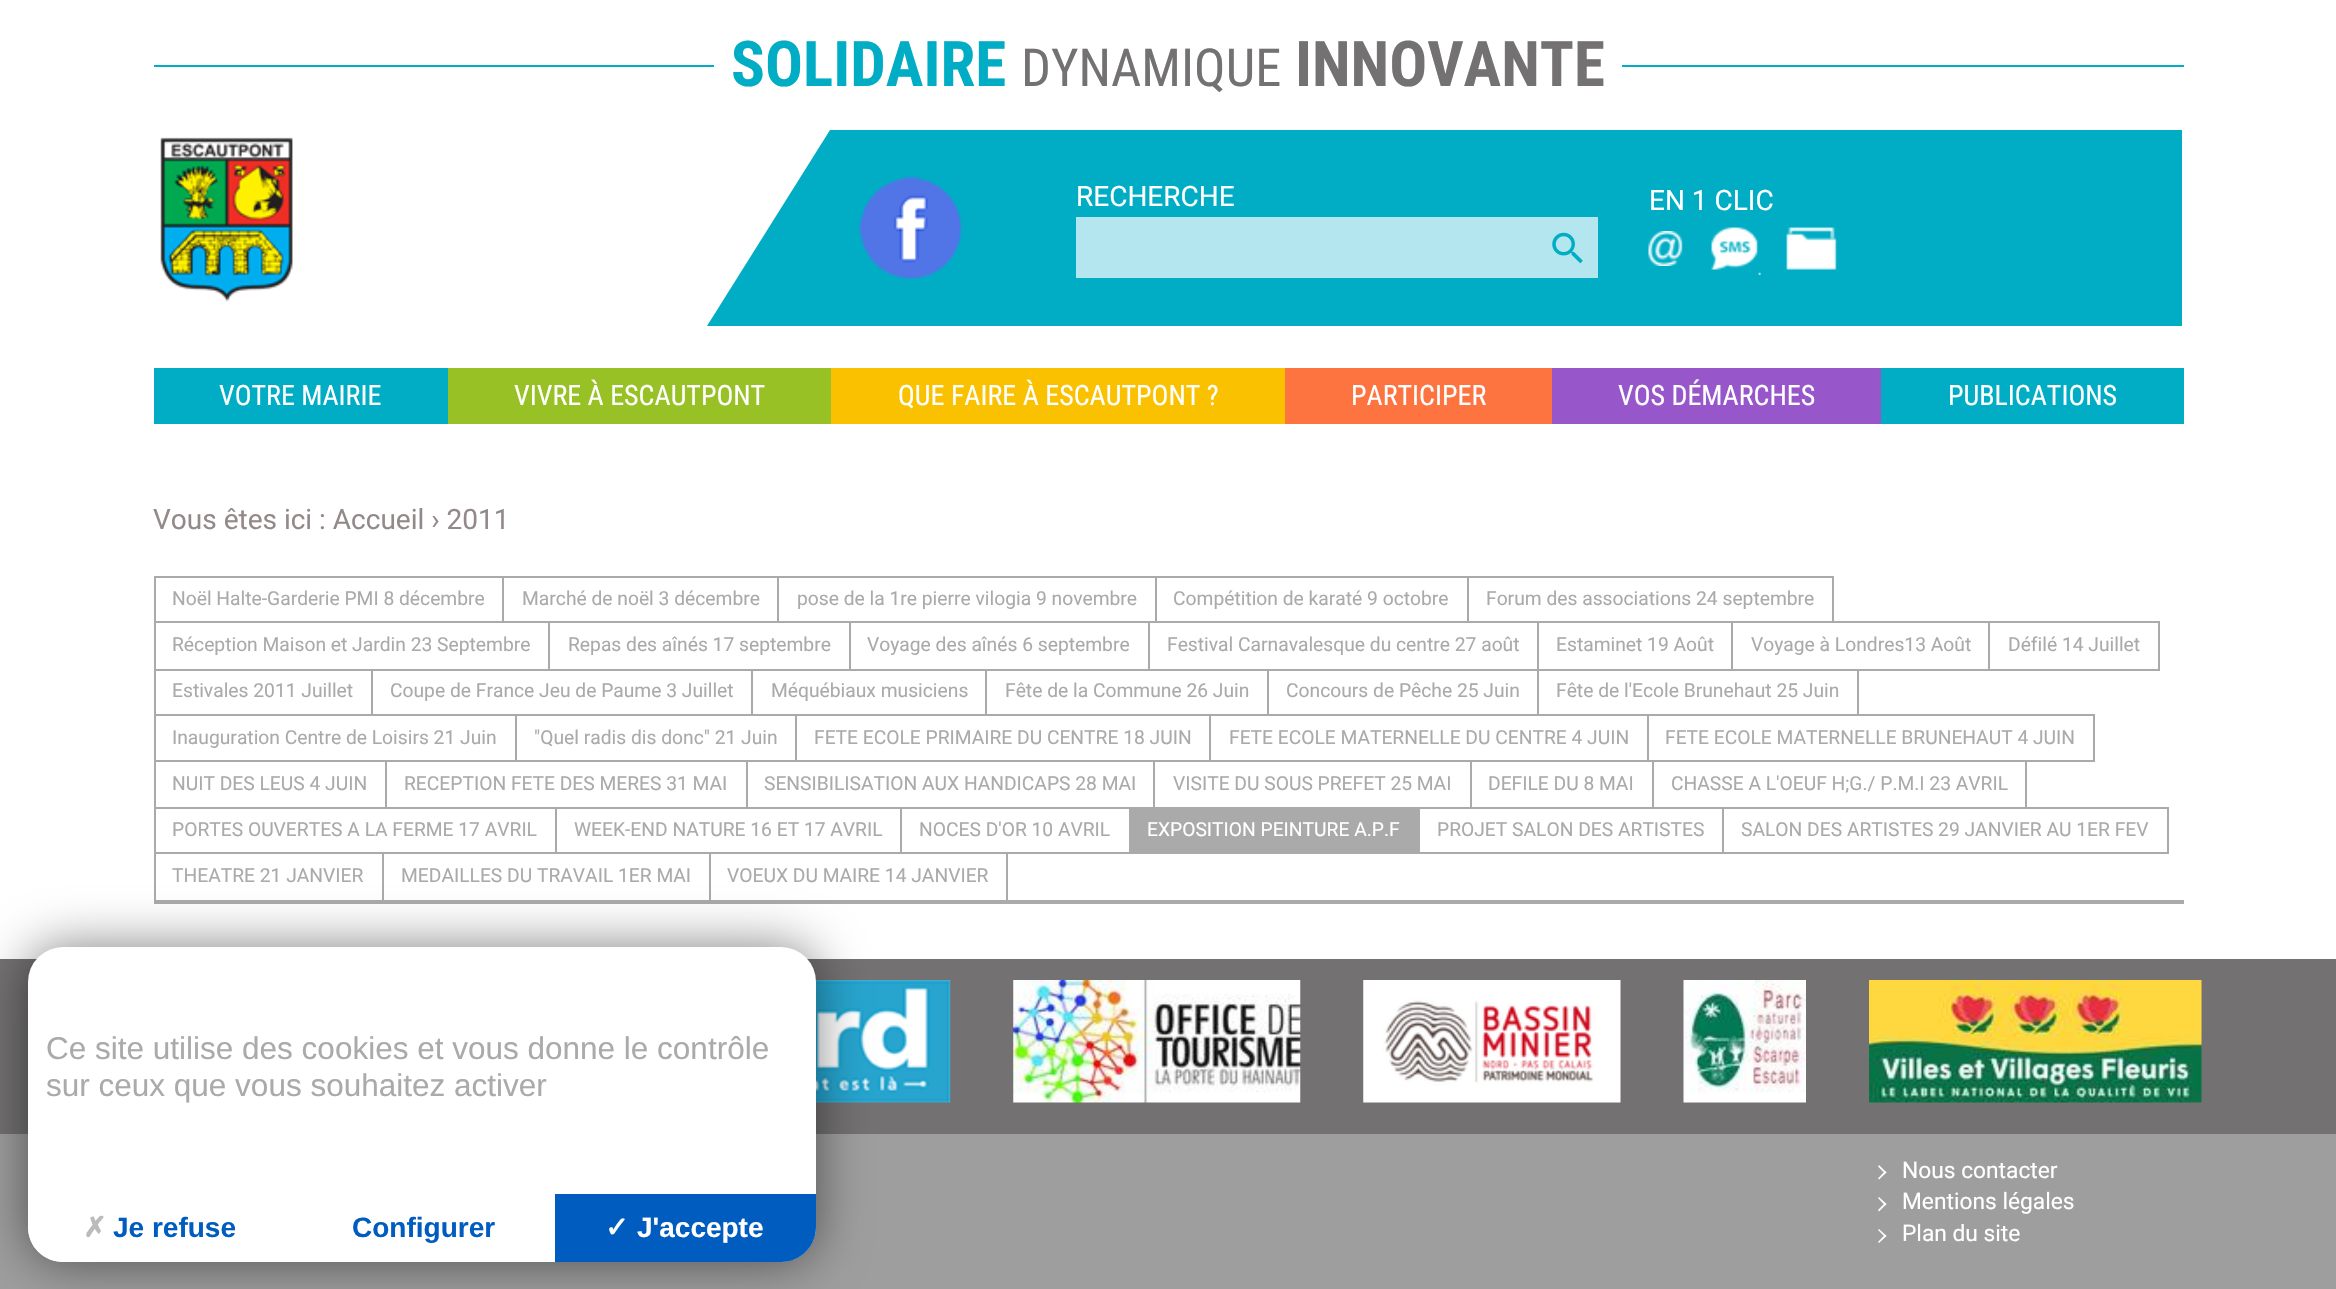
void draw(SkCanvas* canvas) {
	SkPaint paint;
	paint.setAntiAlias(true);
	auto svgPath = [&](const char* data, bool evenOdd = false) {
		SkPath result = *SkParsePath::FromSVGString(data);
		if (evenOdd) result.setFillType(SkPathFillType::kEvenOdd);
		return result;
	};
	canvas->clear(0xffffffff);
	paint.setColor(0xff00adc5);
	canvas->drawRect(SkRect::MakeXYWH(154, 65, 2030, 2), paint);
	paint.setColor(0xffffffff);
	canvas->drawRect(SkRect::MakeXYWH(714, 65, 908, 2), paint);
	SkFont f1(fontMgr->matchFamilyStyle("Roboto Condensed", SkFontStyle::Bold()), 63);
	f1.setSubpixel(true);
	paint.setColor(0xff00adc5);
	canvas->drawString("SOLIDAIRE", 731, 86, f1, paint);
	SkFont f2(fontMgr->matchFamilyStyle("Roboto Condensed", SkFontStyle::Normal()), 52.5);
	f2.setSubpixel(true);
	paint.setColor(0xff737172);
	canvas->drawString("DYNAMIQUE", 1021, 86, f2, paint);
	canvas->drawString("INNOVANTE", 1295, 86, f1, paint);
	canvas->drawImageRect(SkImages::DeferredFromEncodedData(SkData::MakeFromFileName("img1.png")), SkRect::MakeXYWH(160, 137, 133, 165), SkSamplingOptions());
	paint.setColor(0xff00adc5);
	canvas->drawRect(SkRect::MakeXYWH(830, 130, 1352, 196), paint);
	canvas->drawPath(svgPath("M830 326H707L830 130Z"), paint);
	canvas->drawImageRect(SkImages::DeferredFromEncodedData(SkData::MakeFromFileName("img2.png")), SkRect::MakeXYWH(859, 176, 103, 103), SkSamplingOptions());
	SkFont f3(fontMgr->matchFamilyStyle("Roboto", SkFontStyle::Normal()), 28);
	f3.setSubpixel(true);
	paint.setColor(0xffffffff);
	canvas->drawString("RECHERCHE", 1076, 206, f3, paint);
	paint.setColor(0xffb3e6ee);
	canvas->drawRect(SkRect::MakeXYWH(1076, 217, 522, 61), paint);
	canvas->drawImageRect(SkImages::DeferredFromEncodedData(SkData::MakeFromFileName("img3.png")), SkRect::MakeXYWH(1552, 232, 31, 32), SkSamplingOptions());
	paint.setColor(0xffffffff);
	canvas->drawString("EN 1 CLIC", 1649, 210, f3, paint);
	canvas->drawImageRect(SkImages::DeferredFromEncodedData(SkData::MakeFromFileName("img4.png")), SkRect::MakeXYWH(1648, 231, 35, 35), SkSamplingOptions());
	canvas->drawImageRect(SkImages::DeferredFromEncodedData(SkData::MakeFromFileName("img5.png")), SkRect::MakeXYWH(1711, 227, 50, 48), SkSamplingOptions());
	canvas->drawImageRect(SkImages::DeferredFromEncodedData(SkData::MakeFromFileName("img6.png")), SkRect::MakeXYWH(1786, 227, 51, 43), SkSamplingOptions());
	paint.setColor(0xff00adc5);
	canvas->drawRect(SkRect::MakeXYWH(154, 368, 294, 56), paint);
	SkFont f4(fontMgr->matchFamilyStyle("Roboto Condensed", SkFontStyle::Normal()), 28);
	f4.setSubpixel(true);
	paint.setColor(0xffffffff);
	canvas->drawString("VOTRE MAIRIE", 219, 405, f4, paint);
	paint.setColor(0xff98c125);
	canvas->drawRect(SkRect::MakeXYWH(448, 368, 383, 56), paint);
	paint.setColor(0xffffffff);
	canvas->drawString("VIVRE À ESCAUTPONT", 514, 405, f4, paint);
	paint.setColor(0xfffac100);
	canvas->drawRect(SkRect::MakeXYWH(831, 368, 454, 56), paint);
	paint.setColor(0xffffffff);
	canvas->drawString("QUE FAIRE À ESCAUTPONT ?", 898, 405, f4, paint);
	paint.setColor(0xfffd7441);
	canvas->drawRect(SkRect::MakeXYWH(1285, 368, 267, 56), paint);
	paint.setColor(0xffffffff);
	canvas->drawString("PARTICIPER", 1351, 405, f4, paint);
	paint.setColor(0xff9757cb);
	canvas->drawRect(SkRect::MakeXYWH(1552, 368, 329, 56), paint);
	paint.setColor(0xffffffff);
	canvas->drawString("VOS DÉMARCHES", 1618, 405, f4, paint);
	paint.setColor(0xff00adc5);
	canvas->drawRect(SkRect::MakeXYWH(1881, 368, 303, 56), paint);
	paint.setColor(0xffffffff);
	canvas->drawString("PUBLICATIONS", 1948, 405, f4, paint);
	paint.setColor(0xff93898a);
	canvas->drawString("Vous êtes ici : Accueil › 2011", 153, 529, f3, paint);
	paint.setColor(0xffaaaaaa);
	canvas->drawRect(SkRect::MakeXYWH(154, 900, 2030, 4), paint);
	canvas->drawRect(SkRect::MakeXYWH(154, 576, 2, 327), paint);
	canvas->drawRect(SkRect::MakeXYWH(156, 576, 1312, 2), paint);
	canvas->drawRect(SkRect::MakeXYWH(502, 576, 2, 47), paint);
	canvas->drawRect(SkRect::MakeXYWH(156, 621, 348, 2), paint);
	SkFont f5(fontMgr->matchFamilyStyle("Roboto", SkFontStyle::Normal()), 19.25);
	f5.setSubpixel(true);
	canvas->drawString("Noël Halte-Garderie PMI 8 décembre", 172, 605, f5, paint);
	canvas->drawRect(SkRect::MakeXYWH(777, 576, 2, 47), paint);
	canvas->drawRect(SkRect::MakeXYWH(504, 621, 275, 2), paint);
	canvas->drawString("Marché de noël 3 décembre", 522, 605, f5, paint);
	canvas->drawRect(SkRect::MakeXYWH(1155, 576, 2, 47), paint);
	canvas->drawRect(SkRect::MakeXYWH(779, 621, 378, 2), paint);
	canvas->drawString("pose de la 1re pierre vilogia 9 novembre", 797, 605, f5, paint);
	canvas->drawRect(SkRect::MakeXYWH(1467, 576, 2, 47), paint);
	canvas->drawRect(SkRect::MakeXYWH(1157, 621, 574, 2), paint);
	canvas->drawString("Compétition de karaté 9 octobre", 1173, 605, f5, paint);
	canvas->drawRect(SkRect::MakeXYWH(1468, 576, 366, 2), paint);
	canvas->drawRect(SkRect::MakeXYWH(1832, 576, 2, 47), paint);
	canvas->drawString("Forum des associations 24 septembre", 1486, 605, f5, paint);
	canvas->drawRect(SkRect::MakeXYWH(548, 621, 2, 49), paint);
	canvas->drawRect(SkRect::MakeXYWH(156, 669, 394, 2), paint);
	canvas->drawString("Réception Maison et Jardin 23 Septembre", 172, 651, f5, paint);
	canvas->drawRect(SkRect::MakeXYWH(849, 621, 2, 49), paint);
	canvas->drawRect(SkRect::MakeXYWH(550, 669, 301, 2), paint);
	canvas->drawString("Repas des aînés 17 septembre", 568, 651, f5, paint);
	canvas->drawRect(SkRect::MakeXYWH(1148, 621, 2, 49), paint);
	canvas->drawRect(SkRect::MakeXYWH(851, 669, 299, 2), paint);
	canvas->drawString("Voyage des aînés 6 septembre", 867, 651, f5, paint);
	canvas->drawRect(SkRect::MakeXYWH(1537, 621, 2, 49), paint);
	canvas->drawRect(SkRect::MakeXYWH(1150, 669, 388, 2), paint);
	canvas->drawString("Festival Carnavalesque du centre 27 août", 1167, 651, f5, paint);
	canvas->drawRect(SkRect::MakeXYWH(1731, 621, 2, 49), paint);
	canvas->drawRect(SkRect::MakeXYWH(1538, 669, 195, 2), paint);
	canvas->drawString("Estaminet 19 Août", 1556, 651, f5, paint);
	canvas->drawRect(SkRect::MakeXYWH(1733, 621, 427, 2), paint);
	canvas->drawRect(SkRect::MakeXYWH(1988, 621, 2, 49), paint);
	canvas->drawRect(SkRect::MakeXYWH(1733, 669, 257, 2), paint);
	canvas->drawString("Voyage à Londres13 Août", 1751, 651, f5, paint);
	canvas->drawRect(SkRect::MakeXYWH(2158, 621, 2, 49), paint);
	canvas->drawRect(SkRect::MakeXYWH(1990, 669, 170, 2), paint);
	canvas->drawString("Défilé 14 Juillet", 2008, 651, f5, paint);
	canvas->drawRect(SkRect::MakeXYWH(371, 669, 2, 47), paint);
	canvas->drawRect(SkRect::MakeXYWH(156, 714, 217, 2), paint);
	canvas->drawString("Estivales 2011 Juillet", 172, 697, f5, paint);
	canvas->drawRect(SkRect::MakeXYWH(751, 669, 2, 47), paint);
	canvas->drawRect(SkRect::MakeXYWH(373, 714, 380, 2), paint);
	canvas->drawString("Coupe de France Jeu de Paume 3 Juillet", 390, 697, f5, paint);
	canvas->drawRect(SkRect::MakeXYWH(985, 669, 2, 47), paint);
	canvas->drawRect(SkRect::MakeXYWH(753, 714, 234, 2), paint);
	canvas->drawString("Méquébiaux musiciens", 771, 697, f5, paint);
	canvas->drawRect(SkRect::MakeXYWH(1267, 669, 2, 47), paint);
	canvas->drawRect(SkRect::MakeXYWH(987, 714, 282, 2), paint);
	canvas->drawString("Fête de la Commune 26 Juin", 1005, 697, f5, paint);
	canvas->drawRect(SkRect::MakeXYWH(1537, 669, 2, 47), paint);
	canvas->drawRect(SkRect::MakeXYWH(1269, 714, 378, 2), paint);
	canvas->drawString("Concours de Pêche 25 Juin", 1286, 697, f5, paint);
	canvas->drawRect(SkRect::MakeXYWH(1857, 669, 2, 47), paint);
	canvas->drawString("Fête de l'Ecole Brunehaut 25 Juin", 1556, 697, f5, paint);
	canvas->drawRect(SkRect::MakeXYWH(515, 714, 2, 47), paint);
	canvas->drawRect(SkRect::MakeXYWH(156, 760, 360, 2), paint);
	canvas->drawString("Inauguration Centre de Loisirs 21 Juin", 172, 744, f5, paint);
	canvas->drawRect(SkRect::MakeXYWH(795, 714, 2, 47), paint);
	canvas->drawRect(SkRect::MakeXYWH(516, 760, 280, 2), paint);
	canvas->drawString("\"Quel radis dis donc\" 21 Juin", 534, 744, f5, paint);
	canvas->drawRect(SkRect::MakeXYWH(1209, 714, 2, 47), paint);
	canvas->drawRect(SkRect::MakeXYWH(796, 760, 415, 2), paint);
	canvas->drawString("FETE ECOLE PRIMAIRE DU CENTRE 18 JUIN", 814, 744, f5, paint);
	canvas->drawRect(SkRect::MakeXYWH(1647, 714, 2, 47), paint);
	canvas->drawRect(SkRect::MakeXYWH(1211, 760, 438, 2), paint);
	canvas->drawString("FETE ECOLE MATERNELLE DU CENTRE 4 JUIN", 1229, 744, f5, paint);
	canvas->drawRect(SkRect::MakeXYWH(1649, 714, 446, 2), paint);
	canvas->drawRect(SkRect::MakeXYWH(2093, 714, 2, 47), paint);
	canvas->drawRect(SkRect::MakeXYWH(1649, 760, 446, 2), paint);
	canvas->drawString("FETE ECOLE MATERNELLE BRUNEHAUT 4 JUIN", 1665, 744, f5, paint);
	canvas->drawRect(SkRect::MakeXYWH(385, 760, 2, 49), paint);
	canvas->drawRect(SkRect::MakeXYWH(156, 807, 231, 2), paint);
	canvas->drawString("NUIT DES LEUS 4 JUIN", 172, 790, f5, paint);
	canvas->drawRect(SkRect::MakeXYWH(746, 760, 2, 49), paint);
	canvas->drawRect(SkRect::MakeXYWH(387, 807, 360, 2), paint);
	canvas->drawString("RECEPTION FETE DES MERES 31 MAI", 404, 790, f5, paint);
	canvas->drawRect(SkRect::MakeXYWH(1153, 760, 2, 49), paint);
	canvas->drawRect(SkRect::MakeXYWH(747, 807, 408, 2), paint);
	canvas->drawString("SENSIBILISATION AUX HANDICAPS 28 MAI", 764, 790, f5, paint);
	canvas->drawRect(SkRect::MakeXYWH(1470, 760, 2, 49), paint);
	canvas->drawRect(SkRect::MakeXYWH(1155, 807, 317, 2), paint);
	canvas->drawString("VISITE DU SOUS PREFET 25 MAI", 1173, 790, f5, paint);
	canvas->drawRect(SkRect::MakeXYWH(1652, 760, 2, 49), paint);
	canvas->drawRect(SkRect::MakeXYWH(1472, 807, 250, 2), paint);
	canvas->drawString("DEFILE DU 8 MAI", 1488, 790, f5, paint);
	canvas->drawRect(SkRect::MakeXYWH(2025, 760, 2, 49), paint);
	canvas->drawString("CHASSE A L'OEUF H;G./ P.M.I 23 AVRIL", 1671, 790, f5, paint);
	canvas->drawRect(SkRect::MakeXYWH(555, 807, 2, 47), paint);
	canvas->drawRect(SkRect::MakeXYWH(156, 852, 401, 2), paint);
	canvas->drawString("PORTES OUVERTES A LA FERME 17 AVRIL", 172, 836, f5, paint);
	canvas->drawRect(SkRect::MakeXYWH(900, 807, 2, 47), paint);
	canvas->drawRect(SkRect::MakeXYWH(557, 852, 344, 2), paint);
	canvas->drawString("WEEK-END NATURE 16 ET 17 AVRIL", 574, 836, f5, paint);
	canvas->drawRect(SkRect::MakeXYWH(1129, 807, 2, 47), paint);
	canvas->drawRect(SkRect::MakeXYWH(901, 852, 230, 2), paint);
	canvas->drawString("NOCES D'OR 10 AVRIL", 919, 836, f5, paint);
	canvas->drawRect(SkRect::MakeXYWH(1418, 807, 2, 47), paint);
	canvas->drawRect(SkRect::MakeXYWH(1131, 852, 288, 2), paint);
	canvas->drawRect(SkRect::MakeXYWH(1131, 809, 287, 43), paint);
	paint.setColor(0xffffffff);
	canvas->drawString("EXPOSITION PEINTURE A.P.F", 1147, 836, f5, paint);
	paint.setColor(0xffaaaaaa);
	canvas->drawRect(SkRect::MakeXYWH(1722, 807, 2, 47), paint);
	canvas->drawRect(SkRect::MakeXYWH(1419, 852, 305, 2), paint);
	canvas->drawString("PROJET SALON DES ARTISTES", 1437, 836, f5, paint);
	canvas->drawRect(SkRect::MakeXYWH(1724, 807, 444, 2), paint);
	canvas->drawRect(SkRect::MakeXYWH(2167, 807, 2, 47), paint);
	canvas->drawRect(SkRect::MakeXYWH(1724, 852, 444, 2), paint);
	canvas->drawString("SALON DES ARTISTES 29 JANVIER AU 1ER FEV", 1741, 836, f5, paint);
	canvas->drawRect(SkRect::MakeXYWH(382, 852, 2, 48), paint);
	canvas->drawString("THEATRE 21 JANVIER", 172, 882, f5, paint);
	canvas->drawRect(SkRect::MakeXYWH(709, 852, 2, 48), paint);
	canvas->drawString("MEDAILLES DU TRAVAIL 1ER MAI", 401, 882, f5, paint);
	canvas->drawRect(SkRect::MakeXYWH(1006, 852, 2, 48), paint);
	canvas->drawString("VOEUX DU MAIRE 14 JANVIER", 727, 882, f5, paint);
	paint.setColor(0xff737172);
	canvas->drawRect(SkRect::MakeXYWH(0, 959, 2336, 175), paint);
	canvas->drawImageRect(SkImages::DeferredFromEncodedData(SkData::MakeFromFileName("img7.png")), SkRect::MakeXYWH(815, 980, 136, 123), SkSamplingOptions());
	paint.setColor(0xff9e9e9e);
	canvas->drawRect(SkRect::MakeXYWH(0, 1134, 2336, 155), paint);
	paint.setColor(0x80000000);
	paint.setMaskFilter(SkMaskFilter::MakeBlur(kNormal_SkBlurStyle, 26));
	canvas->drawRoundRect(SkRect::MakeXYWH(28, 947, 788, 315), 35, 35, paint);
	paint.setMaskFilter(nullptr);
	paint.setColor(0xffffffff);
	canvas->drawRoundRect(SkRect::MakeXYWH(28, 947, 788, 315), 35, 35, paint);
	SkFont f6(fontMgr->matchFamilyStyle("Liberation Sans", SkFontStyle::Normal()), 31.5);
	f6.setSubpixel(true);
	paint.setColor(0xffaaaaaa);
	canvas->drawString("Ce site utilise des cookies et vous donne le contrôle", 46, 1059, f6, paint);
	canvas->drawString("sur ceux que vous souhaitez activer", 46, 1096, f6, paint);
	paint.setColor(0xffffffff);
	canvas->drawPath(svgPath("M28 1194H291V1262H63C43.5 1262 28 1246.5 28 1227Z"), paint);
	SkFont f7(fontMgr->matchFamilyStyle("DejaVu Sans", SkFontStyle::Bold()), 28);
	f7.setSubpixel(true);
	paint.setColor(0xffbbbbbb);
	canvas->drawString("✗", 83, 1237, f7, paint);
	SkFont f8(fontMgr->matchFamilyStyle("Liberation Sans", SkFontStyle::Bold()), 28);
	f8.setSubpixel(true);
	paint.setColor(0xff005cbf);
	canvas->drawString("Je refuse", 113, 1237, f8, paint);
	canvas->drawPath(svgPath("M553 1194H816V1227C816 1246.5 800.5 1262 781 1262H553Z"), paint);
	paint.setColor(0xffffffff);
	canvas->drawRect(SkRect::MakeXYWH(553, 1194, 2, 68), paint);
	paint.setColor(0xff005cbf);
	canvas->drawString("Configurer", 352, 1237, f8, paint);
	paint.setColor(0xffffffff);
	canvas->drawString("✓", 605, 1237, f7, paint);
	canvas->drawString("J'accepte", 637, 1237, f8, paint);
	canvas->drawImageRect(SkImages::DeferredFromEncodedData(SkData::MakeFromFileName("img8.png")), SkRect::MakeXYWH(1013, 980, 288, 123), SkSamplingOptions());
	canvas->drawImageRect(SkImages::DeferredFromEncodedData(SkData::MakeFromFileName("img9.png")), SkRect::MakeXYWH(1363, 980, 258, 123), SkSamplingOptions());
	canvas->drawImageRect(SkImages::DeferredFromEncodedData(SkData::MakeFromFileName("img10.png")), SkRect::MakeXYWH(1683, 980, 123, 123), SkSamplingOptions());
	canvas->drawImageRect(SkImages::DeferredFromEncodedData(SkData::MakeFromFileName("img11.png")), SkRect::MakeXYWH(1869, 980, 333, 123), SkSamplingOptions());
	canvas->drawPath(svgPath("M1879 1165L1886.5 1172.5L1885 1173.5L1878 1166.5Z"), paint);
	canvas->drawPath(svgPath("M1885 1171L1886.5 1172.5L1879 1179.5L1878 1178.5Z"), paint);
	SkFont f9(fontMgr->matchFamilyStyle("Roboto", SkFontStyle::Normal()), 22.75);
	f9.setSubpixel(true);
	canvas->drawString("Nous contacter", 1902, 1178, f9, paint);
	canvas->drawPath(svgPath("M1879 1197L1886.5 1204L1885 1205.5L1878 1198Z"), paint);
	canvas->drawPath(svgPath("M1885 1203L1886.5 1204L1879 1211.5L1878 1210Z"), paint);
	canvas->drawString("Mentions légales", 1902, 1209, f9, paint);
	canvas->drawPath(svgPath("M1879 1229L1886.5 1236L1885 1237L1878 1230Z"), paint);
	canvas->drawPath(svgPath("M1885 1234.5L1886.5 1236L1879 1243L1878 1242Z"), paint);
	canvas->drawString("Plan du site", 1902, 1241, f9, paint);
}
